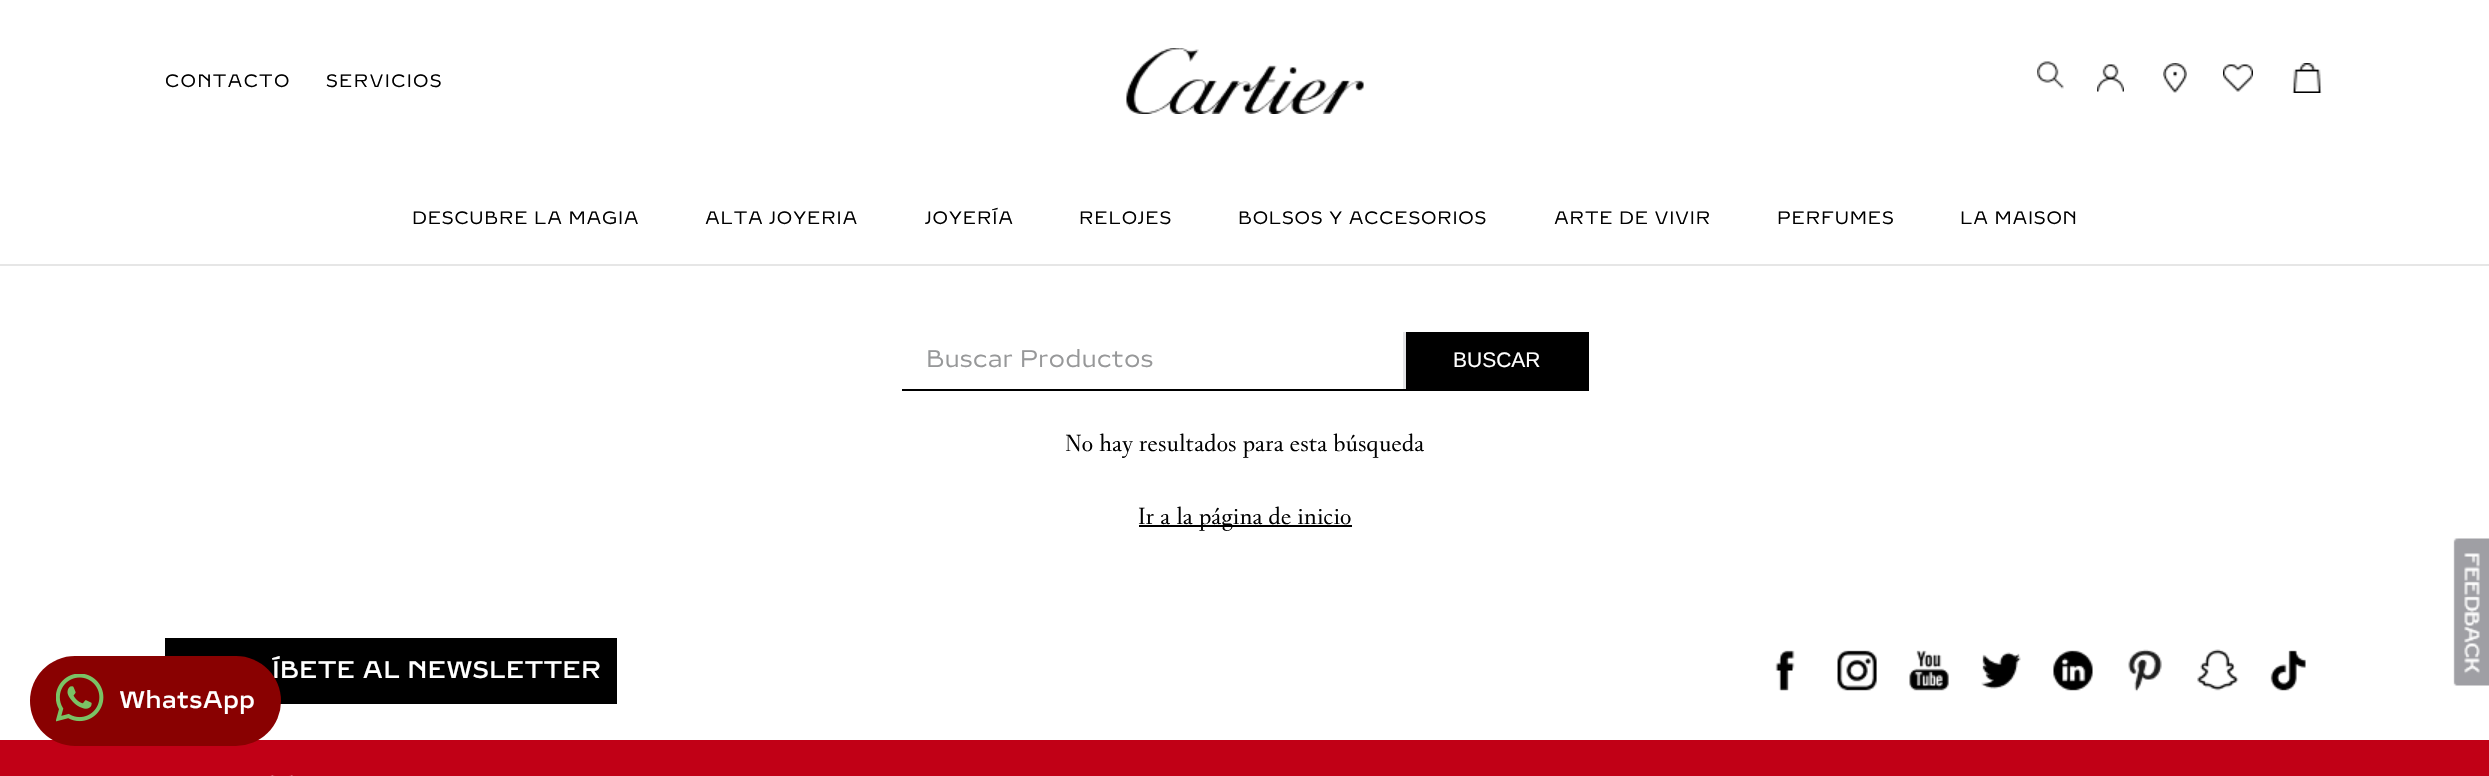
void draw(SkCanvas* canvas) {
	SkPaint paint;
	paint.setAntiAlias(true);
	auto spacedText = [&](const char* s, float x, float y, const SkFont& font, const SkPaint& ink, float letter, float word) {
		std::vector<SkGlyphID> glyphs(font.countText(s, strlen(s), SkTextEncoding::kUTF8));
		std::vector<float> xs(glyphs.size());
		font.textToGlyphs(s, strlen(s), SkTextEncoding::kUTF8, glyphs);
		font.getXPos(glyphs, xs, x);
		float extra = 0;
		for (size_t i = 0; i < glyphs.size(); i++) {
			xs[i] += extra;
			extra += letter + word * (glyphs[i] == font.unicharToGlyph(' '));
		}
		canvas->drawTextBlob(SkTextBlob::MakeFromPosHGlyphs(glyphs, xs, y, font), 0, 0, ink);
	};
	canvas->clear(0xffffffff);
	SkFont f1(fontMgr->matchFamilyStyle("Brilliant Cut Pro", SkFontStyle::Normal()), 18);
	f1.setSubpixel(true);
	paint.setColor(0xff000000);
	spacedText("CONTACTO", 165, 87, f1, paint, 1.25, 0);
	spacedText("SERVICIOS", 326, 87, f1, paint, 1.25, 0);
	canvas->drawImageRect(SkImages::DeferredFromEncodedData(SkData::MakeFromFileName("img1.png")), SkRect::MakeXYWH(1126, 48, 238, 66), SkSamplingOptions());
	canvas->drawImageRect(SkImages::DeferredFromEncodedData(SkData::MakeFromFileName("img2.png")), SkRect::MakeXYWH(2037, 61, 27, 28), SkSamplingOptions());
	canvas->drawImageRect(SkImages::DeferredFromEncodedData(SkData::MakeFromFileName("img3.png")), SkRect::MakeXYWH(2097, 64, 27, 28), SkSamplingOptions());
	canvas->drawImageRect(SkImages::DeferredFromEncodedData(SkData::MakeFromFileName("img4.png")), SkRect::MakeXYWH(2163, 63, 24, 30), SkSamplingOptions());
	canvas->drawImageRect(SkImages::DeferredFromEncodedData(SkData::MakeFromFileName("img5.png")), SkRect::MakeXYWH(2223, 64, 30, 28), SkSamplingOptions());
	canvas->drawImageRect(SkImages::DeferredFromEncodedData(SkData::MakeFromFileName("img6.png")), SkRect::MakeXYWH(2292, 63, 30, 30), SkSamplingOptions());
	paint.setColor(0xffe6e6e6);
	canvas->drawRect(SkRect::MakeXYWH(0, 264, 2489, 2), paint);
	paint.setColor(0xff000000);
	spacedText("DESCUBRE LA MAGIA", 412, 224, f1, paint, 0.75, 0);
	spacedText("ALTA JOYERIA", 705, 224, f1, paint, 0.75, 0);
	spacedText("JOYERÍA", 925, 224, f1, paint, 0.75, 0);
	spacedText("RELOJES", 1079, 224, f1, paint, 0.75, 0);
	spacedText("BOLSOS Y ACCESORIOS", 1238, 224, f1, paint, 0.75, 0);
	spacedText("ARTE DE VIVIR", 1554, 224, f1, paint, 0.75, 0);
	spacedText("PERFUMES", 1777, 224, f1, paint, 0.75, 0);
	spacedText("LA MAISON", 1960, 224, f1, paint, 0.75, 0);
	canvas->drawRect(SkRect::MakeXYWH(902, 389, 687, 2), paint);
	SkFont f2(fontMgr->matchFamilyStyle("Brilliant Cut Pro", SkFontStyle::Normal()), 24);
	f2.setSubpixel(true);
	paint.setColor(0xff979899);
	canvas->drawString("Buscar Productos", 926, 367, f2, paint);
	paint.setColor(0xffe3e4e6);
	canvas->drawRect(SkRect::MakeXYWH(1403, 332, 3, 57), paint);
	paint.setColor(0xff000000);
	canvas->drawRect(SkRect::MakeXYWH(1406, 332, 183, 57), paint);
	SkFont f3(fontMgr->matchFamilyStyle("Liberation Sans", SkFontStyle::Normal()), 21);
	f3.setSubpixel(true);
	paint.setColor(0xffffffff);
	canvas->drawString("BUSCAR", 1453, 367, f3, paint);
	SkFont f4(fontMgr->matchFamilyStyle("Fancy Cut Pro", SkFontStyle::Normal()), 24);
	f4.setSubpixel(true);
	paint.setColor(0xff000000);
	canvas->drawString("No hay resultados para esta búsqueda", 1065, 451, f4, paint);
	canvas->drawRect(SkRect::MakeXYWH(1139, 525, 213, 2), paint);
	canvas->drawString("Ir a la página de inicio", 1138, 524, f4, paint);
	canvas->drawRect(SkRect::MakeXYWH(165, 638, 452, 66), paint);
	SkFont f5(fontMgr->matchFamilyStyle("Brilliant Cut Pro", SkFontStyle(500, SkFontStyle::kNormal_Width, SkFontStyle::kUpright_Slant)), 24);
	f5.setSubpixel(true);
	paint.setColor(0xffffffff);
	canvas->drawString("ÍBETE AL NEWSLETTER", 272, 678, f5, paint);
	canvas->drawImageRect(SkImages::DeferredFromEncodedData(SkData::MakeFromFileName("img7.png")), SkRect::MakeXYWH(1775, 650, 20, 41), SkSamplingOptions());
	canvas->drawImageRect(SkImages::DeferredFromEncodedData(SkData::MakeFromFileName("img8.png")), SkRect::MakeXYWH(1837, 650, 40, 41), SkSamplingOptions());
	canvas->drawImageRect(SkImages::DeferredFromEncodedData(SkData::MakeFromFileName("img9.png")), SkRect::MakeXYWH(1909, 650, 40, 41), SkSamplingOptions());
	canvas->drawImageRect(SkImages::DeferredFromEncodedData(SkData::MakeFromFileName("img10.png")), SkRect::MakeXYWH(1981, 652, 40, 37), SkSamplingOptions());
	canvas->drawImageRect(SkImages::DeferredFromEncodedData(SkData::MakeFromFileName("img11.png")), SkRect::MakeXYWH(2053, 650, 40, 41), SkSamplingOptions());
	canvas->drawImageRect(SkImages::DeferredFromEncodedData(SkData::MakeFromFileName("img12.png")), SkRect::MakeXYWH(2128, 649, 34, 43), SkSamplingOptions());
	canvas->drawImageRect(SkImages::DeferredFromEncodedData(SkData::MakeFromFileName("img13.png")), SkRect::MakeXYWH(2197, 649, 42, 42), SkSamplingOptions());
	canvas->drawImageRect(SkImages::DeferredFromEncodedData(SkData::MakeFromFileName("img14.png")), SkRect::MakeXYWH(2270, 650, 36, 41), SkSamplingOptions());
	paint.setColor(0xffc10016);
	canvas->drawRect(SkRect::MakeXYWH(0, 740, 2489, 36), paint);
	paint.setColor(0xff890101);
	canvas->drawRoundRect(SkRect::MakeXYWH(30, 656, 251, 90), 45, 45, paint);
	canvas->drawImageRect(SkImages::DeferredFromEncodedData(SkData::MakeFromFileName("img15.png")), SkRect::MakeXYWH(56, 674, 48, 48), SkSamplingOptions());
	paint.setColor(0xffffffff);
	canvas->drawString("WhatsApp", 119, 708, f5, paint);
	canvas->drawImageRect(SkImages::DeferredFromEncodedData(SkData::MakeFromFileName("img16.png")), SkRect::MakeXYWH(270, 775, 23, 1), SkSamplingOptions());
	canvas->drawImageRect(SkImages::DeferredFromEncodedData(SkData::MakeFromFileName("img17.png")), SkRect::MakeXYWH(2453, 538, 36, 148), SkSamplingOptions());
}
